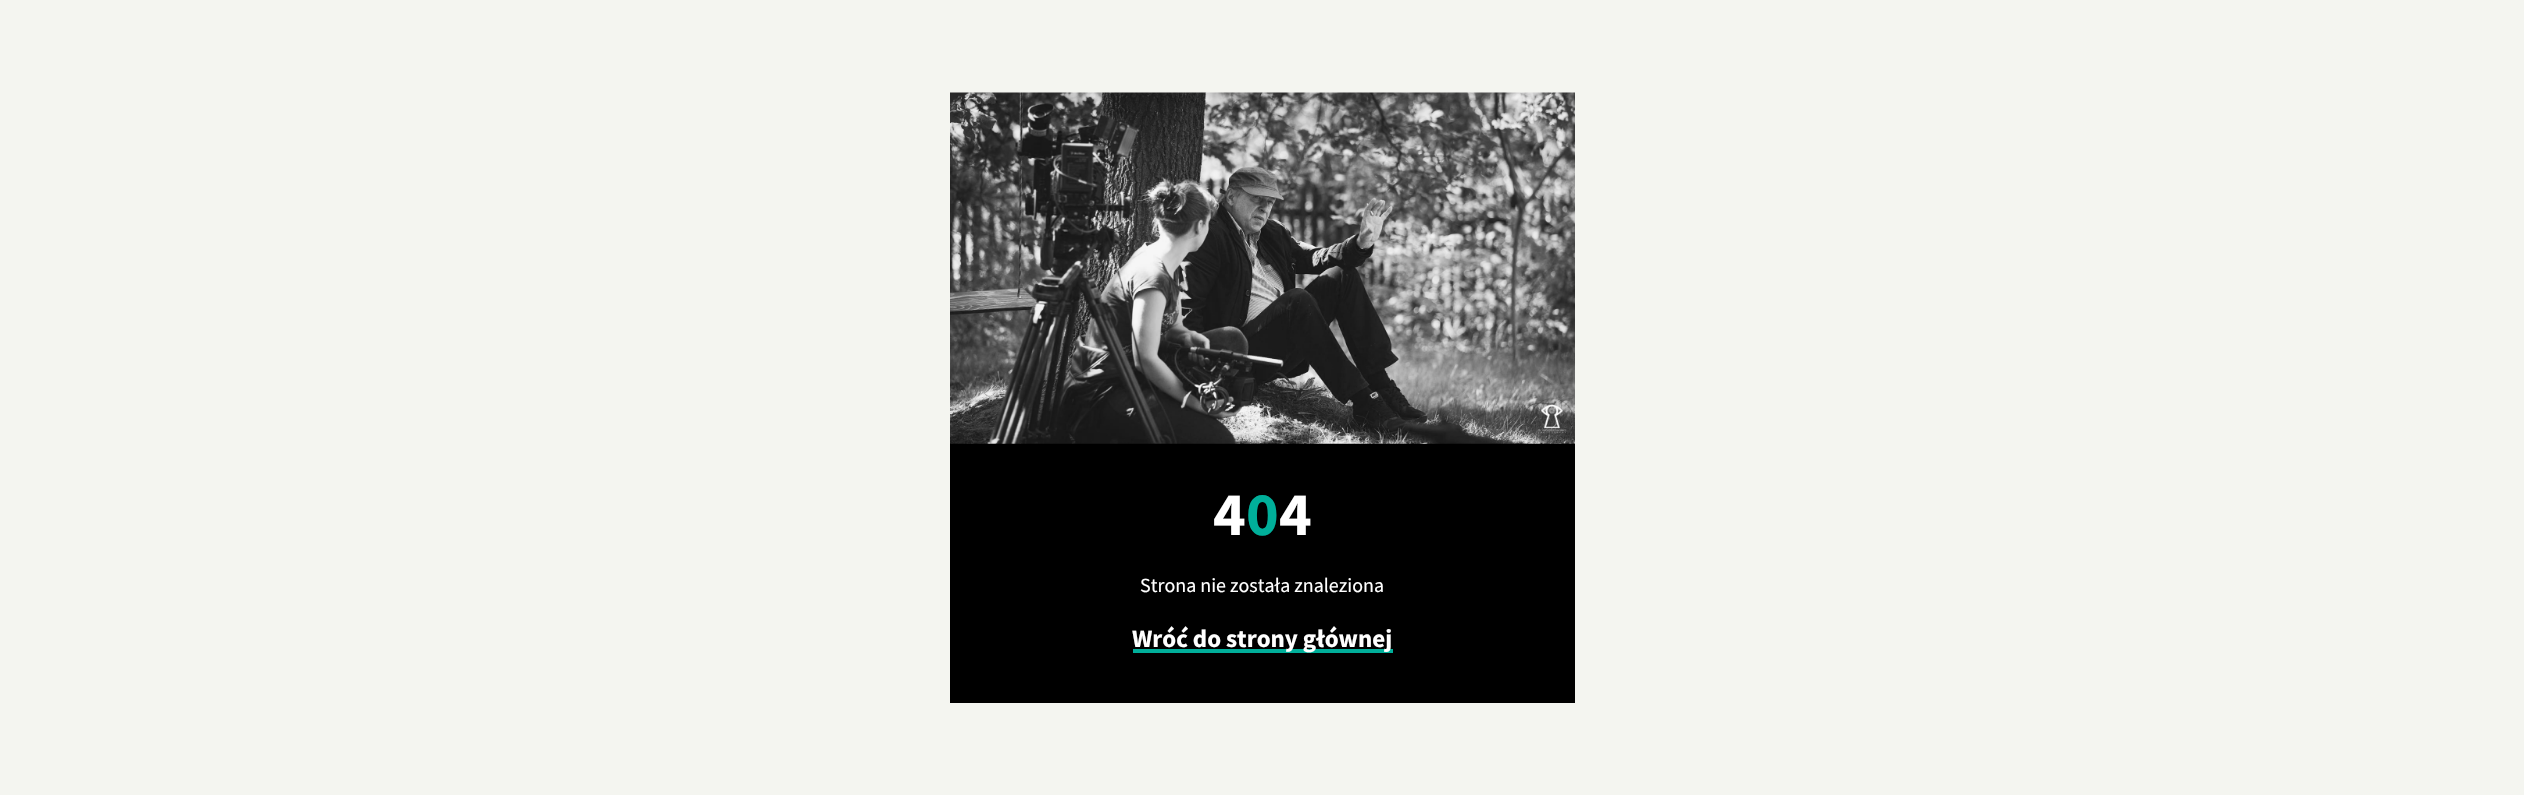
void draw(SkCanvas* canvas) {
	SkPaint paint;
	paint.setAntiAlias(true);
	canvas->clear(0xfff4f5f0);
	paint.setColor(0xff000000);
	canvas->drawRect(SkRect::MakeXYWH(950, 443, 625, 260), paint);
	canvas->drawImageRect(SkImages::DeferredFromEncodedData(SkData::MakeFromFileName("img1.png")), SkRect::MakeXYWH(950, 92, 625, 352), SkSamplingOptions());
	SkFont f1(fontMgr->matchFamilyStyle("Source Sans Pro", SkFontStyle::Bold()), 62);
	f1.setSubpixel(true);
	paint.setColor(0xffffffff);
	canvas->drawString("4", 1213, 535, f1, paint);
	paint.setColor(0xff00af9a);
	canvas->drawString("0", 1246, 535, f1, paint);
	paint.setColor(0xffffffff);
	canvas->drawString("4", 1279, 535, f1, paint);
	SkFont f2(fontMgr->matchFamilyStyle("Source Sans Pro", SkFontStyle::Normal()), 20);
	f2.setSubpixel(true);
	canvas->drawString("Strona nie została znaleziona", 1140, 592, f2, paint);
	paint.setColor(0xff00af9a);
	canvas->drawRect(SkRect::MakeXYWH(1133, 649, 260, 4), paint);
	SkFont f3(fontMgr->matchFamilyStyle("Source Sans Pro", SkFontStyle::Bold()), 25);
	f3.setSubpixel(true);
	paint.setColor(0xffffffff);
	canvas->drawString("Wróć do strony głównej", 1132, 647, f3, paint);
}
